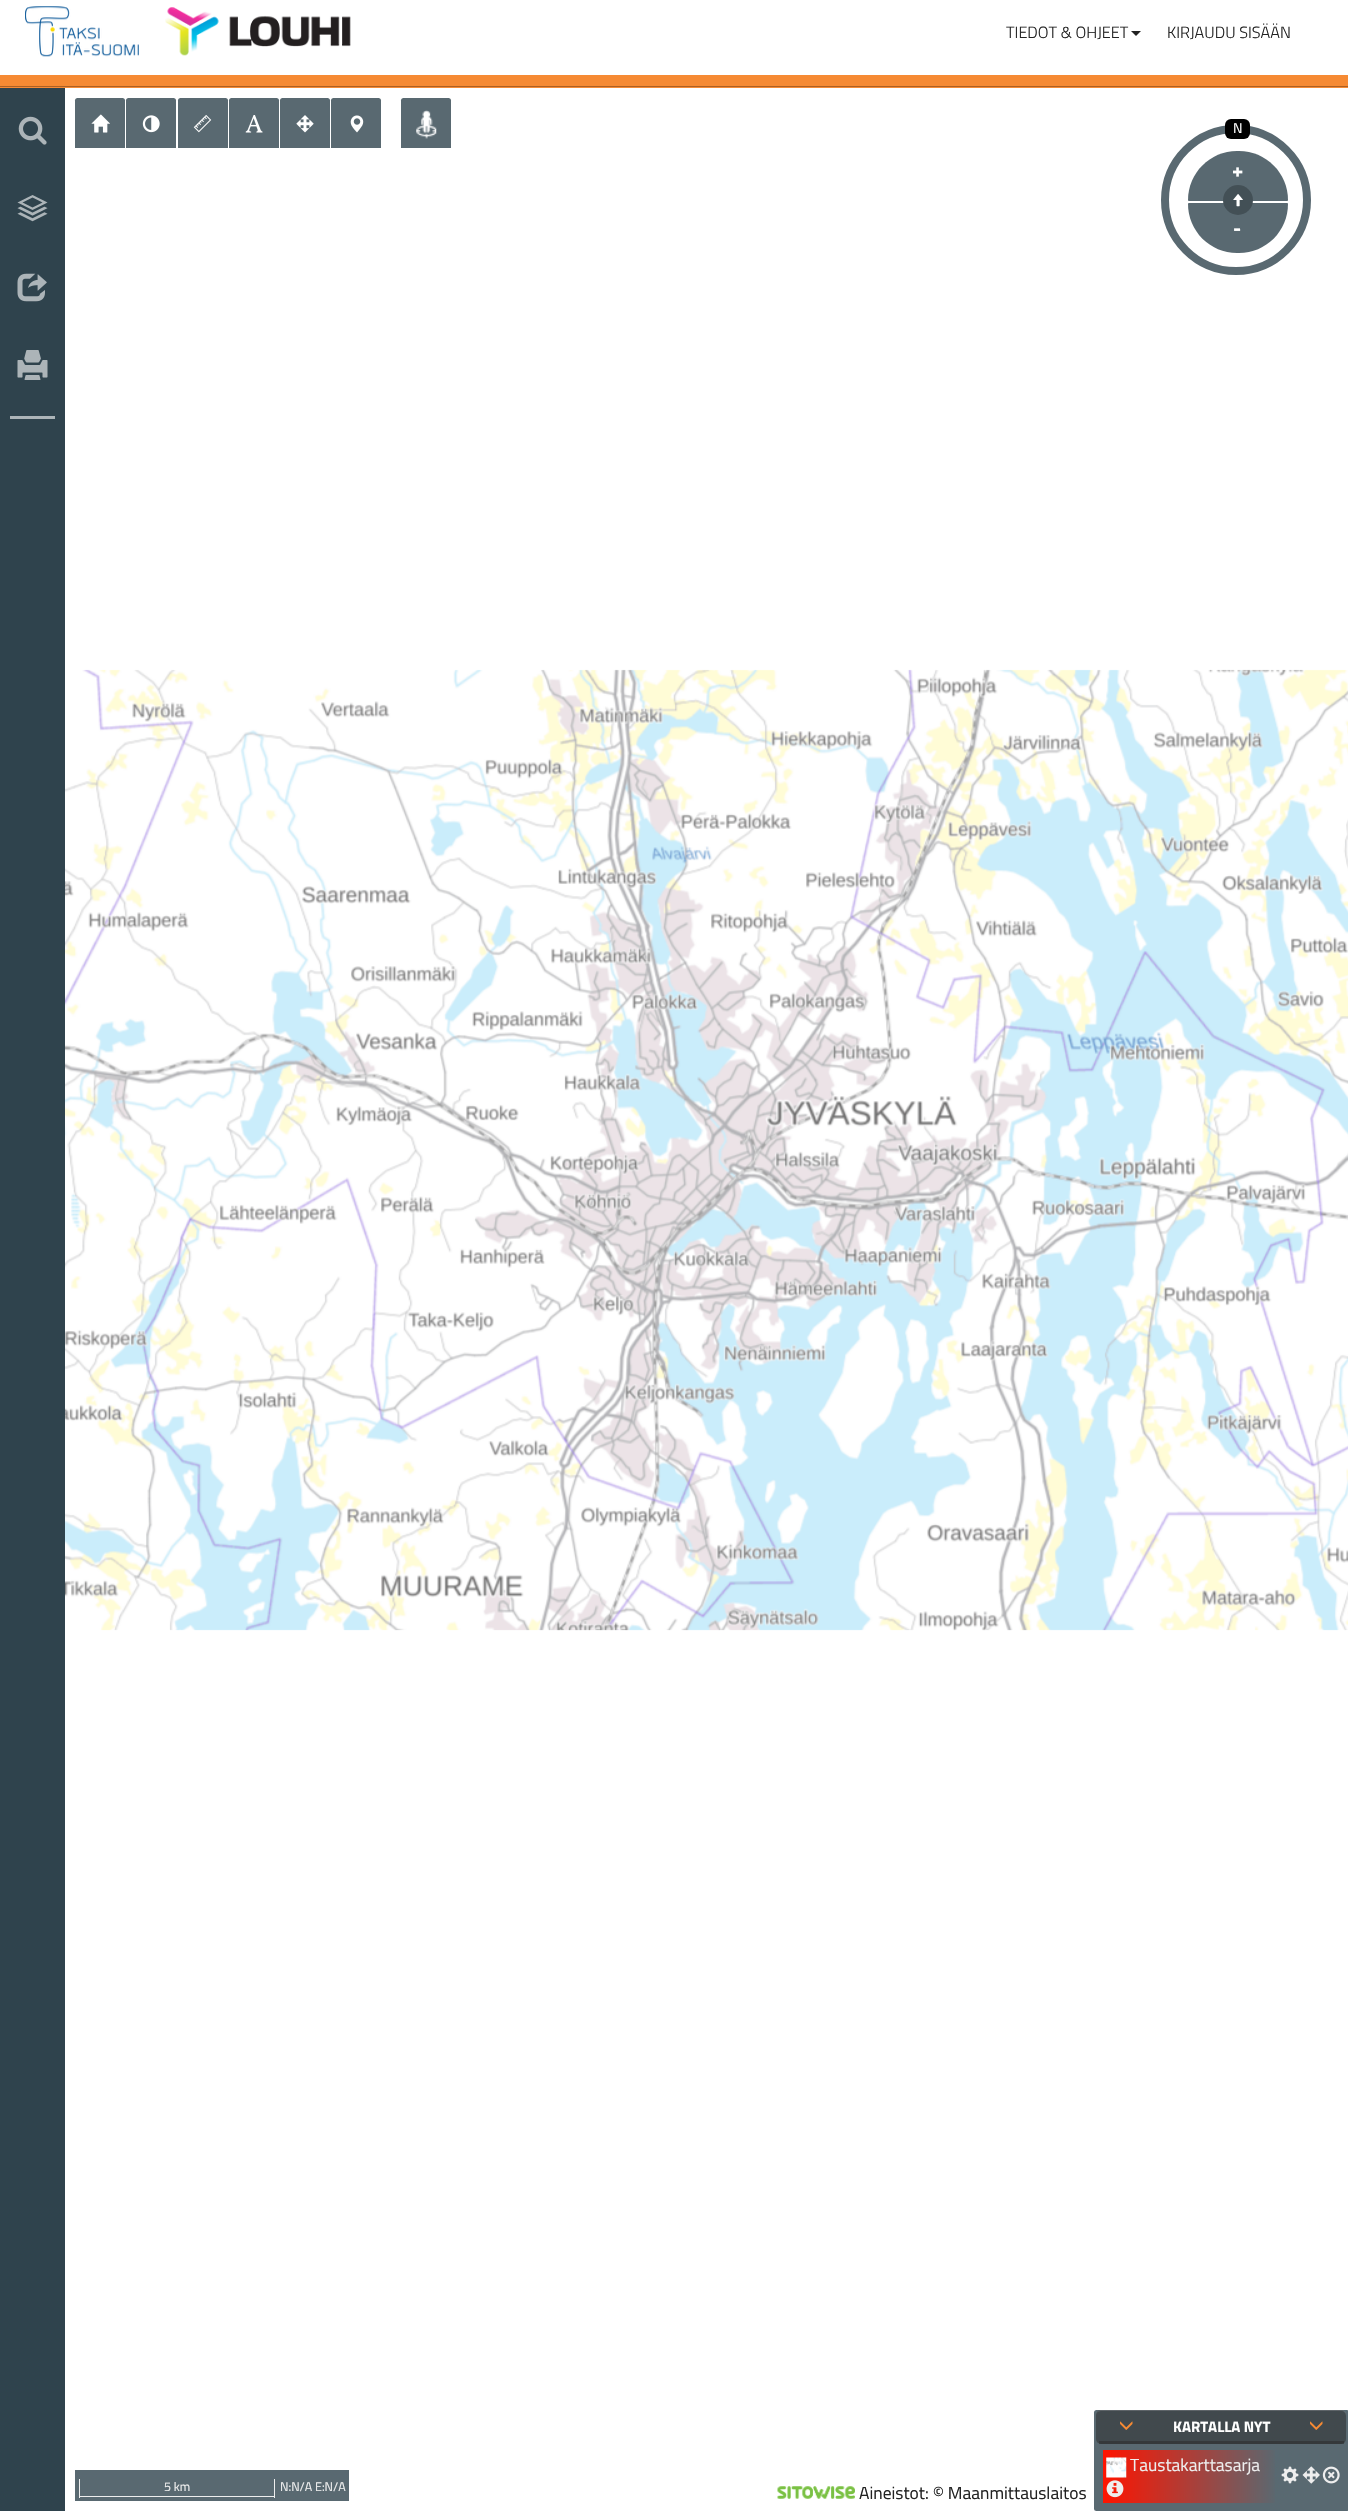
void draw(SkCanvas* canvas) {
	SkPaint paint;
	paint.setAntiAlias(true);
	auto svgPath = [&](const char* data, bool evenOdd = false) {
		SkPath result = *SkParsePath::FromSVGString(data);
		if (evenOdd) result.setFillType(SkPathFillType::kEvenOdd);
		return result;
	};
	canvas->clear(0xffffffff);
	paint.setColor(0xfff68a33);
	canvas->drawRect(SkRect::MakeXYWH(0, 75, 1348, 13), paint);
	paint.setColor(0xffac6024);
	canvas->drawRect(SkRect::MakeXYWH(0, 86, 1348, 1), paint);
	canvas->drawImageRect(SkImages::DeferredFromEncodedData(SkData::MakeFromFileName("img1.png")), SkRect::MakeXYWH(25, 6, 114, 51), SkSamplingOptions());
	canvas->drawImageRect(SkImages::DeferredFromEncodedData(SkData::MakeFromFileName("img2.png")), SkRect::MakeXYWH(165, 7, 186, 49), SkSamplingOptions());
	SkFont f1(fontMgr->matchFamilyStyle("Titillium Web", SkFontStyle(300, SkFontStyle::kNormal_Width, SkFontStyle::kUpright_Slant)), 16.25);
	f1.setSubpixel(true);
	paint.setColor(0xff222222);
	canvas->drawString("TIEDOT & OHJEET", 1006, 38, f1, paint);
	canvas->drawPath(svgPath("M1131 31H1141L1136 36Z"), paint);
	canvas->drawString("KIRJAUDU SISÄÄN", 1167, 38, f1, paint);
	paint.setColor(0xff2f434d);
	canvas->drawRect(SkRect::MakeXYWH(0, 88, 65, 2423), paint);
	canvas->drawImageRect(SkImages::DeferredFromEncodedData(SkData::MakeFromFileName("img3.png")), SkRect::MakeXYWH(18, 116, 29, 29), SkSamplingOptions());
	canvas->drawImageRect(SkImages::DeferredFromEncodedData(SkData::MakeFromFileName("img4.png")), SkRect::MakeXYWH(17, 195, 31, 27), SkSamplingOptions());
	canvas->drawImageRect(SkImages::DeferredFromEncodedData(SkData::MakeFromFileName("img5.png")), SkRect::MakeXYWH(17, 273, 30, 29), SkSamplingOptions());
	canvas->drawImageRect(SkImages::DeferredFromEncodedData(SkData::MakeFromFileName("img6.png")), SkRect::MakeXYWH(17, 350, 31, 30), SkSamplingOptions());
	paint.setColor(0xffacb4b8);
	canvas->drawRect(SkRect::MakeXYWH(10, 416, 45, 3), paint);
	paint.setColor(0xff596971);
	canvas->drawPath(svgPath("M77.5 98H122.5C124 98 125 99 125 100.5V148H75V100.5C75 99 76 98 77.5 98Z"), paint);
	canvas->drawImageRect(SkImages::DeferredFromEncodedData(SkData::MakeFromFileName("img7.png")), SkRect::MakeXYWH(91, 114, 19, 19), SkSamplingOptions());
	canvas->drawPath(svgPath("M128.5 98H173.5C175 98 176 99 176 100.5V148H126V100.5C126 99 127 98 128.5 98Z"), paint);
	canvas->drawImageRect(SkImages::DeferredFromEncodedData(SkData::MakeFromFileName("img8.png")), SkRect::MakeXYWH(142, 115, 18, 18), SkSamplingOptions());
	canvas->drawPath(svgPath("M180.5 98H225.5C227 98 228 99 228 100.5V148H178V100.5C178 99 179 98 180.5 98Z"), paint);
	canvas->drawImageRect(SkImages::DeferredFromEncodedData(SkData::MakeFromFileName("img9.png")), SkRect::MakeXYWH(193, 115, 19, 18), SkSamplingOptions());
	canvas->drawPath(svgPath("M231.5 98H276.5C278 98 279 99 279 100.5V148H229V100.5C229 99 230 98 231.5 98Z"), paint);
	canvas->drawImageRect(SkImages::DeferredFromEncodedData(SkData::MakeFromFileName("img10.png")), SkRect::MakeXYWH(245, 115, 18, 18), SkSamplingOptions());
	canvas->drawPath(svgPath("M282.5 98H327.5C329 98 330 99 330 100.5V148H280V100.5C280 99 281 98 282.5 98Z"), paint);
	canvas->drawImageRect(SkImages::DeferredFromEncodedData(SkData::MakeFromFileName("img11.png")), SkRect::MakeXYWH(296, 115, 18, 18), SkSamplingOptions());
	canvas->drawPath(svgPath("M333.5 98H378.5C380 98 381 99 381 100.5V148H331V100.5C331 99 332 98 333.5 98Z"), paint);
	canvas->drawImageRect(SkImages::DeferredFromEncodedData(SkData::MakeFromFileName("img12.png")), SkRect::MakeXYWH(350, 115, 14, 18), SkSamplingOptions());
	canvas->drawPath(svgPath("M403.5 98H448.5C450 98 451 99 451 100.5V148H401V100.5C401 99 402 98 403.5 98Z"), paint);
	canvas->drawImageRect(SkImages::DeferredFromEncodedData(SkData::MakeFromFileName("img13.png")), SkRect::MakeXYWH(416, 110, 21, 29), SkSamplingOptions());
	paint.setStroke(true);
	paint.setStrokeWidth(8);
	canvas->drawCircle(1236, 200, 71, paint);
	paint.setStroke(false);
	paint.setColor(0xff000000);
	canvas->drawRoundRect(SkRect::MakeXYWH(1225, 119, 25, 20), 6, 6, paint);
	SkFont f2(fontMgr->matchFamilyStyle("Titillium Web", SkFontStyle::Normal()), 14);
	f2.setSubpixel(true);
	paint.setColor(0xffffffff);
	canvas->drawString("N", 1233, 133, f2, paint);
	paint.setColor(0xff596971);
	canvas->drawPath(svgPath("M1237 151H1239C1266 151 1288 173 1288 200C1288 200.5 1287.5 201 1287 201H1189C1188.5 201 1188 200.5 1188 200C1188 173 1210 151 1237 151Z"), paint);
	SkFont f3(fontMgr->matchFamilyStyle("Titillium Web", SkFontStyle::Bold()), 20);
	f3.setSubpixel(true);
	paint.setColor(0xffffffff);
	canvas->drawString("+", 1232, 177, f3, paint);
	paint.setColor(0xff596971);
	canvas->drawPath(svgPath("M1189 203H1287C1287.5 203 1288 203.5 1288 204C1288 231 1266 253 1239 253H1237C1210 253 1188 231 1188 204C1188 203.5 1188.5 203 1189 203Z"), paint);
	paint.setColor(0xffffffff);
	canvas->drawString("-", 1233, 235, f3, paint);
	paint.setColor(0xff435056);
	canvas->drawCircle(1238, 200, 15, paint);
	canvas->drawImageRect(SkImages::DeferredFromEncodedData(SkData::MakeFromFileName("img14.png")), SkRect::MakeXYWH(1233, 194, 10, 13), SkSamplingOptions());
	paint.setColor(0xff596971);
	canvas->drawRoundRect(SkRect::MakeXYWH(1094, 2410, 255, 101), 2.5, 2.5, paint);
	paint.setColor(0x80272727);
	canvas->drawRoundRect(SkRect::MakeXYWH(1096, 2410, 250, 34), 5, 5, paint);
	paint.setColor(0x26ffffff);
	canvas->drawPath(svgPath("M1101 2411H1341C1344 2411 1346 2413 1346 2416V2440V2415C1346 2412 1344 2410 1341 2410H1101C1099 2410 1097 2412 1096 2414C1097 2412 1099 2411 1101 2411Z"), paint);
	paint.setColor(0x80272727);
	canvas->drawRect(SkRect::MakeXYWH(1099, 2441, 245, 3), paint);
	canvas->drawImageRect(SkImages::DeferredFromEncodedData(SkData::MakeFromFileName("img15.png")), SkRect::MakeXYWH(1120, 2421, 13, 9), SkSamplingOptions());
	SkFont f4(fontMgr->matchFamilyStyle("Titillium Web", SkFontStyle::Bold()), 15);
	f4.setSubpixel(true);
	paint.setColor(0xffffffff);
	canvas->drawString("KARTALLA NYT", 1173, 2432, f4, paint);
	canvas->drawImageRect(SkImages::DeferredFromEncodedData(SkData::MakeFromFileName("img15.png")), SkRect::MakeXYWH(1310, 2421, 13, 9), SkSamplingOptions());
	{
		const SkColor colors[] = {0xff596971, 0xffff1400};
		const float stops[] = {0, 1};
		const SkPoint ends[] = {{1278, 2476}, {1103, 2476}};
		paint.setShader(SkGradientShader::MakeLinear(ends, colors, stops, 2, SkTileMode::kClamp));
		paint.setAlpha(255);
	}
	canvas->drawRect(SkRect::MakeXYWH(1103, 2450, 172, 53), paint);
	canvas->drawImageRect(SkImages::DeferredFromEncodedData(SkData::MakeFromFileName("img16.png")), SkRect::MakeXYWH(1106, 2457, 21, 21), SkSamplingOptions());
	SkFont f5(fontMgr->matchFamilyStyle("Titillium Web", SkFontStyle::Normal()), 17.5);
	f5.setSubpixel(true);
	paint.setShader(nullptr);
	paint.setColor(0xffeeeeee);
	canvas->drawString("Taustakarttasarja", 1130, 2471, f5, paint);
	canvas->drawImageRect(SkImages::DeferredFromEncodedData(SkData::MakeFromFileName("img17.png")), SkRect::MakeXYWH(1106, 2480, 18, 18), SkSamplingOptions());
	canvas->drawImageRect(SkImages::DeferredFromEncodedData(SkData::MakeFromFileName("img18.png")), SkRect::MakeXYWH(1281, 2466, 18, 18), SkSamplingOptions());
	canvas->drawImageRect(SkImages::DeferredFromEncodedData(SkData::MakeFromFileName("img19.png")), SkRect::MakeXYWH(1302, 2466, 18, 18), SkSamplingOptions());
	canvas->drawImageRect(SkImages::DeferredFromEncodedData(SkData::MakeFromFileName("img20.png")), SkRect::MakeXYWH(1322, 2466, 18, 18), SkSamplingOptions());
	canvas->drawImageRect(SkImages::DeferredFromEncodedData(SkData::MakeFromFileName("img21.png")), SkRect::MakeXYWH(65, 669, 1283, 962), SkSamplingOptions());
	paint.setColor(0xff596971);
	canvas->drawRect(SkRect::MakeXYWH(75, 2470, 274, 31), paint);
	paint.setColor(0xffeeeeee);
	canvas->drawRect(SkRect::MakeXYWH(274, 2479, 1, 19), paint);
	canvas->drawRect(SkRect::MakeXYWH(79, 2496, 196, 1), paint);
	canvas->drawRect(SkRect::MakeXYWH(79, 2479, 1, 19), paint);
	SkFont f6(fontMgr->matchFamilyStyle("Titillium Web", SkFontStyle::Normal()), 12.5);
	f6.setSubpixel(true);
	canvas->drawString("5 km", 164, 2491, f6, paint);
	canvas->drawString("N:N/A E:N/A", 280, 2491, f6, paint);
	canvas->drawImageRect(SkImages::DeferredFromEncodedData(SkData::MakeFromFileName("img22.png")), SkRect::MakeXYWH(777, 2486, 78, 13), SkSamplingOptions());
	paint.setColor(0xff222222);
	canvas->drawString("Aineistot: © Maanmittauslaitos", 859, 2499, f5, paint);
}
